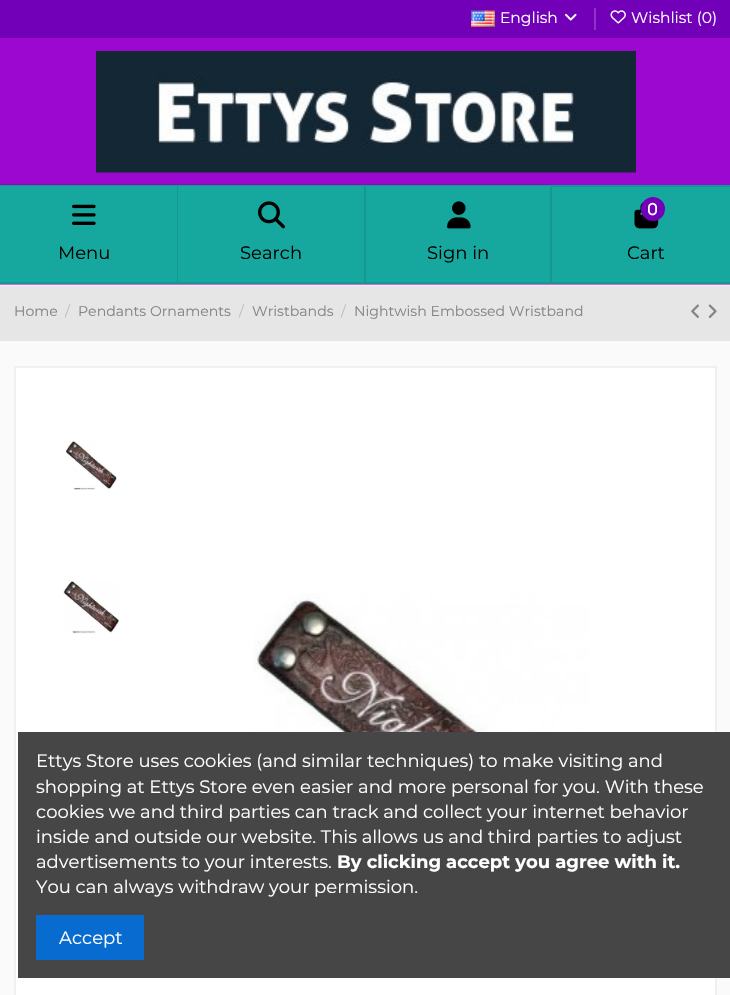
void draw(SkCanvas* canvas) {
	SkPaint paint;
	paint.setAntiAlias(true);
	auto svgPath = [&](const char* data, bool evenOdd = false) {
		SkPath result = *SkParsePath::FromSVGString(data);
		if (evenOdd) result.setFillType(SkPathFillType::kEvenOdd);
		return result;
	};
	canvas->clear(0xfffafafa);
	paint.setColor(0xff9c08d0);
	canvas->drawRect(SkRect::MakeXYWH(0, 38, 730, 247), paint);
	paint.setColor(0xff7200b8);
	canvas->drawRect(SkRect::MakeXYWH(0, 0, 730, 38), paint);
	canvas->drawImageRect(SkImages::DeferredFromEncodedData(SkData::MakeFromFileName("img1.png")), SkRect::MakeXYWH(471, 10, 24, 17), SkSamplingOptions());
	SkFont f1(fontMgr->matchFamilyStyle("Montserrat", SkFontStyle::Normal()), 15.5);
	f1.setSubpixel(true);
	paint.setColor(0xffffffff);
	canvas->drawString("English", 500, 23, f1, paint);
	canvas->drawImageRect(SkImages::DeferredFromEncodedData(SkData::MakeFromFileName("img2.png")), SkRect::MakeXYWH(565, 13, 12, 8), SkSamplingOptions());
	paint.setColor(0xff8e33c6);
	canvas->drawRect(SkRect::MakeXYWH(594, 8, 2, 22), paint);
	canvas->drawImageRect(SkImages::DeferredFromEncodedData(SkData::MakeFromFileName("img3.png")), SkRect::MakeXYWH(610, 10, 16, 14), SkSamplingOptions());
	paint.setColor(0xffffffff);
	canvas->drawString("Wishlist (0)", 631, 23, f1, paint);
	paint.setColor(0xffe6e6e6);
	canvas->drawRect(SkRect::MakeXYWH(0, 285, 730, 56), paint);
	paint.setColor(0x66ffffff);
	canvas->drawRect(SkRect::MakeXYWH(0, 284, 730, 2), paint);
	canvas->drawImageRect(SkImages::DeferredFromEncodedData(SkData::MakeFromFileName("img4.png")), SkRect::MakeXYWH(96, 51, 540, 122), SkSamplingOptions());
	paint.setColor(0xff16a89e);
	canvas->drawRect(SkRect::MakeXYWH(0, 185, 730, 99), paint);
	paint.setColor(0x1c151515);
	canvas->drawPath(svgPath("M-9 184H178L177 186H-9Z"), paint);
	canvas->drawPath(svgPath("M178 184V284L177 282V186Z"), paint);
	canvas->drawPath(svgPath("M178 284H-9V282H177Z"), paint);
	canvas->drawImageRect(SkImages::DeferredFromEncodedData(SkData::MakeFromFileName("img5.png")), SkRect::MakeXYWH(72, 204, 24, 21), SkSamplingOptions());
	SkFont f2(fontMgr->matchFamilyStyle("Montserrat", SkFontStyle::Normal()), 18);
	f2.setSubpixel(true);
	paint.setColor(0xff000000);
	canvas->drawString("Menu", 58, 259, f2, paint);
	paint.setColor(0x1c151515);
	canvas->drawPath(svgPath("M178 184H366L364 186H178Z"), paint);
	canvas->drawPath(svgPath("M366 184V284L364 282V186Z"), paint);
	canvas->drawPath(svgPath("M366 284H178V282H364Z"), paint);
	canvas->drawImageRect(SkImages::DeferredFromEncodedData(SkData::MakeFromFileName("img6.png")), SkRect::MakeXYWH(258, 201, 27, 28), SkSamplingOptions());
	paint.setColor(0xff000000);
	canvas->drawString("Search", 240, 259, f2, paint);
	paint.setColor(0x1c151515);
	canvas->drawPath(svgPath("M366 184H552L550 186H366Z"), paint);
	canvas->drawPath(svgPath("M552 184V284L550 282V186Z"), paint);
	canvas->drawPath(svgPath("M552 284H366V282H550Z"), paint);
	canvas->drawImageRect(SkImages::DeferredFromEncodedData(SkData::MakeFromFileName("img7.png")), SkRect::MakeXYWH(447, 201, 24, 28), SkSamplingOptions());
	paint.setColor(0xff000000);
	canvas->drawString("Sign in", 427, 259, f2, paint);
	paint.setColor(0xff16988f);
	canvas->drawRect(SkRect::MakeXYWH(552, 185, 178, 2), paint);
	canvas->drawRect(SkRect::MakeXYWH(552, 282, 178, 2), paint);
	canvas->drawImageRect(SkImages::DeferredFromEncodedData(SkData::MakeFromFileName("img9.png")), SkRect::MakeXYWH(634, 201, 25, 28), SkSamplingOptions());
	paint.setColor(0xff7200b8);
	canvas->drawCircle(653, 209, 12, paint);
	canvas->drawImageRect(SkImages::DeferredFromEncodedData(SkData::MakeFromFileName("img8.png")), SkRect::MakeXYWH(648, 202, 9, 14), SkSamplingOptions());
	paint.setColor(0xff000000);
	canvas->drawString("Cart", 627, 259, f2, paint);
	SkFont f3(fontMgr->matchFamilyStyle("Montserrat", SkFontStyle::Normal()), 14.1);
	f3.setSubpixel(true);
	paint.setColor(0xff858585);
	canvas->drawString("Home", 14, 316, f3, paint);
	paint.setColor(0xffbfbfbf);
	canvas->drawString("/", 65, 316, f3, paint);
	paint.setColor(0xff858585);
	canvas->drawString("Pendants Ornaments", 78, 316, f3, paint);
	paint.setColor(0xffbfbfbf);
	canvas->drawString("/", 239, 316, f3, paint);
	paint.setColor(0xff858585);
	canvas->drawString("Wristbands", 252, 316, f3, paint);
	paint.setColor(0xffbfbfbf);
	canvas->drawString("/", 341, 316, f3, paint);
	paint.setColor(0xff858585);
	canvas->drawString("Nightwish Embossed Wristband", 354, 316, f3, paint);
	canvas->drawImageRect(SkImages::DeferredFromEncodedData(SkData::MakeFromFileName("img10.png")), SkRect::MakeXYWH(691, 304, 8, 14), SkSamplingOptions());
	canvas->drawImageRect(SkImages::DeferredFromEncodedData(SkData::MakeFromFileName("img11.png")), SkRect::MakeXYWH(708, 304, 9, 14), SkSamplingOptions());
	paint.setColor(0xffffffff);
	canvas->drawRect(SkRect::MakeXYWH(15, 367, 701, 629), paint);
	paint.setStroke(true);
	paint.setStrokeWidth(2);
	paint.setColor(0xfff0f0f0);
	canvas->drawRect(SkRect::MakeXYWH(15, 367, 701, 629), paint);
	canvas->drawImageRect(SkImages::DeferredFromEncodedData(SkData::MakeFromFileName("img12.png")), SkRect::MakeXYWH(66, 441, 51, 49), SkSamplingOptions());
	canvas->drawImageRect(SkImages::DeferredFromEncodedData(SkData::MakeFromFileName("img13.png")), SkRect::MakeXYWH(63, 581, 56, 53), SkSamplingOptions());
	canvas->drawImageRect(SkImages::DeferredFromEncodedData(SkData::MakeFromFileName("img14.png")), SkRect::MakeXYWH(253, 593, 336, 139), SkSamplingOptions());
	paint.setStroke(false);
	paint.setColor(0xff464646);
	canvas->drawRect(SkRect::MakeXYWH(18, 732, 712, 246), paint);
	paint.setColor(0xffffffff);
	canvas->drawString("Ettys Store uses cookies (and similar techniques) to make visiting and", 36, 767, f2, paint);
	canvas->drawString("shopping at Ettys Store even easier and more personal for you. With these", 36, 793, f2, paint);
	canvas->drawString("cookies we and third parties can track and collect your internet behavior", 36, 818, f2, paint);
	canvas->drawString("inside and outside our website. This allows us and third parties to adjust", 36, 843, f2, paint);
	canvas->drawString("advertisements to your interests.", 36, 868, f2, paint);
	SkFont f4(fontMgr->matchFamilyStyle("Montserrat", SkFontStyle::Bold()), 18);
	f4.setSubpixel(true);
	canvas->drawString("By clicking accept you agree with it.", 337, 868, f4, paint);
	canvas->drawString("You can always withdraw your permission.", 36, 893, f2, paint);
	paint.setColor(0xff086bd0);
	canvas->drawRect(SkRect::MakeXYWH(36, 915, 108, 45), paint);
	paint.setColor(0xffffffff);
	canvas->drawString("Accept", 59, 944, f2, paint);
}
